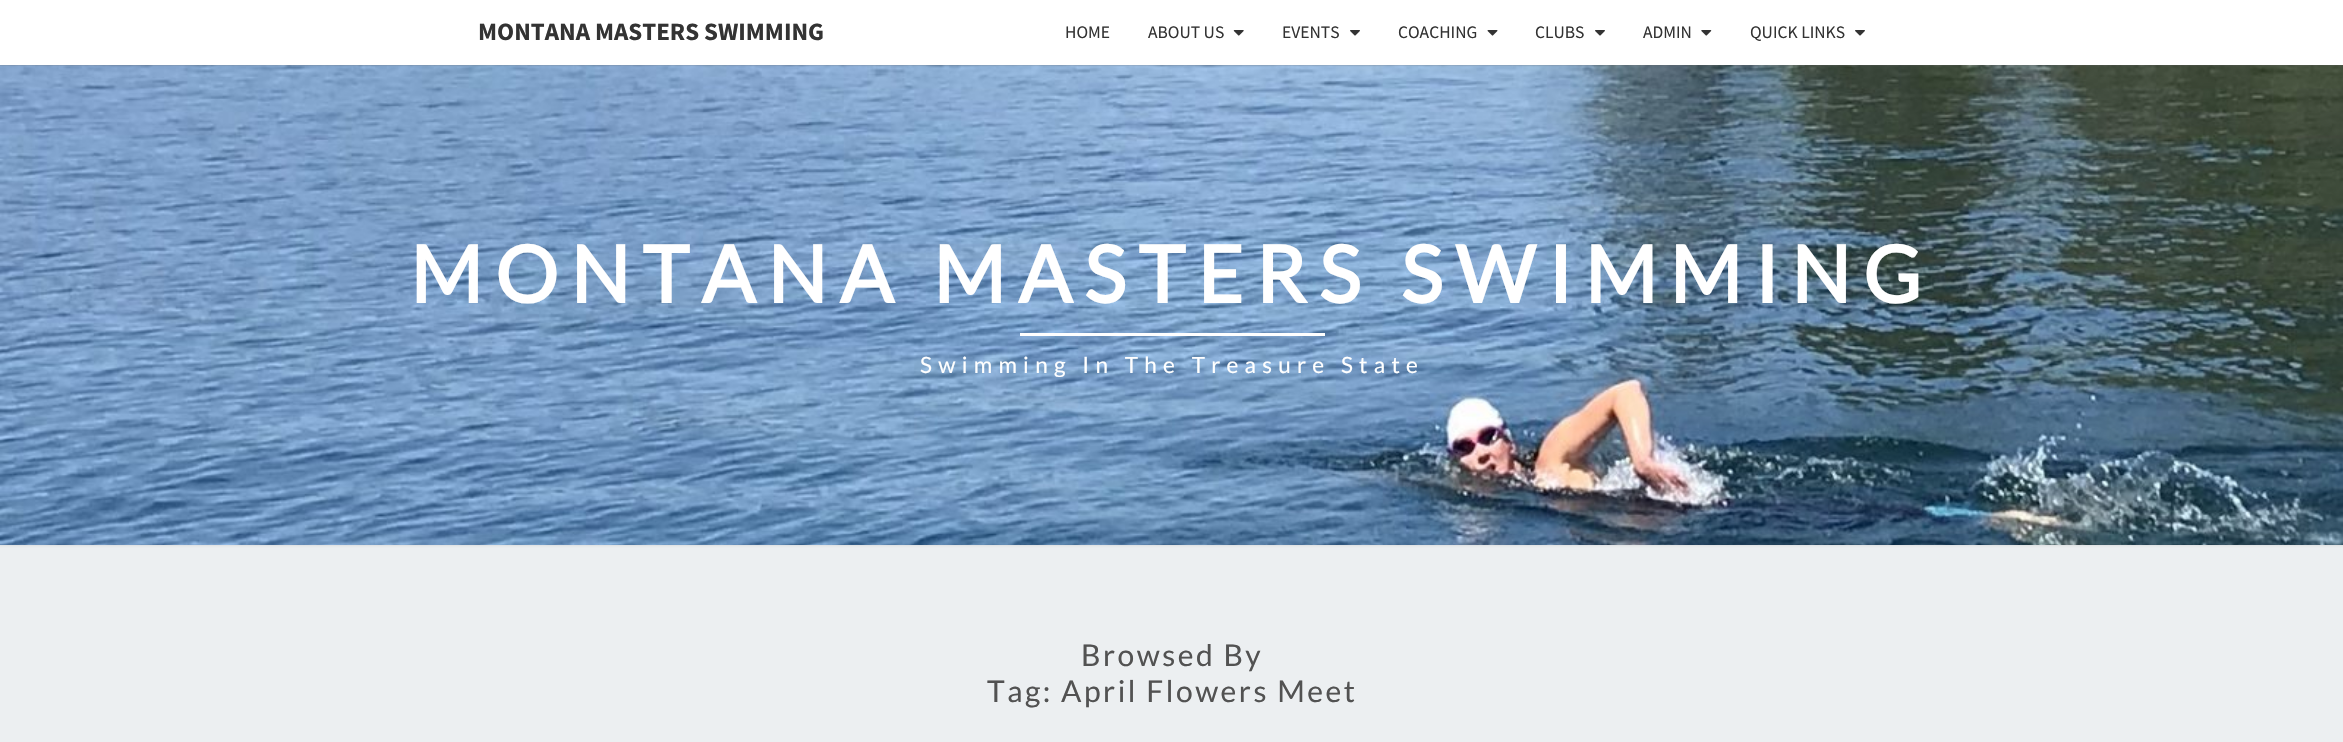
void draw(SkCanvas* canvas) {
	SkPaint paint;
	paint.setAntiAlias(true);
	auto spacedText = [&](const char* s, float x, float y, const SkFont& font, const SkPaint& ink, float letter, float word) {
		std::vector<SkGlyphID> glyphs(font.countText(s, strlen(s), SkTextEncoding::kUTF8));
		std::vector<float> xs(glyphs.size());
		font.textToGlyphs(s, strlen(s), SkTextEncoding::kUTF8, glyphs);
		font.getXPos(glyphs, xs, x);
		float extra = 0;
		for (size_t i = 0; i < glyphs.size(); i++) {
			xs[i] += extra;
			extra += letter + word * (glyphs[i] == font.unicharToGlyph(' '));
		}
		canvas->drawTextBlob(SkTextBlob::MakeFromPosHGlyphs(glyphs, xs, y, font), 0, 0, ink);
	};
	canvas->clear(0xffeceff1);
	paint.setColor(0x4db6b6b6);
	paint.setMaskFilter(SkMaskFilter::MakeBlur(kNormal_SkBlurStyle, 1));
	canvas->drawRect(SkRect::MakeXYWH(-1, 64, 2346, 482), paint);
	paint.setMaskFilter(nullptr);
	canvas->drawImageRect(SkImages::DeferredFromEncodedData(SkData::MakeFromFileName("img5.png")), SkRect::MakeXYWH(0, 65, 2343, 480), SkSamplingOptions());
	paint.setColor(0x33646464);
	paint.setMaskFilter(SkMaskFilter::MakeBlur(kNormal_SkBlurStyle, 0.5));
	canvas->drawRect(SkRect::MakeXYWH(0, 1, 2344, 65), paint);
	paint.setMaskFilter(nullptr);
	paint.setColor(0xffffffff);
	canvas->drawRect(SkRect::MakeXYWH(0, 0, 2343, 65), paint);
	SkFont f1(fontMgr->matchFamilyStyle("Source Sans Pro", SkFontStyle::Bold()), 25);
	f1.setSubpixel(true);
	paint.setColor(0xff333333);
	canvas->drawString("MONTANA MASTERS SWIMMING", 478, 40, f1, paint);
	SkFont f2(fontMgr->matchFamilyStyle("Source Sans Pro", SkFontStyle::Normal()), 17.5);
	f2.setSubpixel(true);
	canvas->drawString("HOME", 1065, 38, f2, paint);
	canvas->drawString("ABOUT US", 1148, 38, f2, paint);
	canvas->drawImageRect(SkImages::DeferredFromEncodedData(SkData::MakeFromFileName("img1.png")), SkRect::MakeXYWH(1233, 30, 11, 6), SkSamplingOptions());
	canvas->drawString("EVENTS", 1282, 38, f2, paint);
	canvas->drawImageRect(SkImages::DeferredFromEncodedData(SkData::MakeFromFileName("img2.png")), SkRect::MakeXYWH(1350, 30, 10, 6), SkSamplingOptions());
	canvas->drawString("COACHING", 1398, 38, f2, paint);
	canvas->drawImageRect(SkImages::DeferredFromEncodedData(SkData::MakeFromFileName("img3.png")), SkRect::MakeXYWH(1487, 30, 11, 6), SkSamplingOptions());
	canvas->drawString("CLUBS", 1535, 38, f2, paint);
	canvas->drawImageRect(SkImages::DeferredFromEncodedData(SkData::MakeFromFileName("img2.png")), SkRect::MakeXYWH(1595, 30, 10, 6), SkSamplingOptions());
	canvas->drawString("ADMIN", 1643, 38, f2, paint);
	canvas->drawImageRect(SkImages::DeferredFromEncodedData(SkData::MakeFromFileName("img4.png")), SkRect::MakeXYWH(1701, 30, 11, 6), SkSamplingOptions());
	canvas->drawString("QUICK LINKS", 1750, 38, f2, paint);
	canvas->drawImageRect(SkImages::DeferredFromEncodedData(SkData::MakeFromFileName("img2.png")), SkRect::MakeXYWH(1855, 30, 10, 6), SkSamplingOptions());
	SkFont f3(fontMgr->matchFamilyStyle("Lato", SkFontStyle::Bold()), 78.75);
	f3.setSubpixel(true);
	paint.setColor(0xffffffff);
	spacedText("MONTANA MASTERS SWIMMING", 410, 303, f3, paint, 12.5, 0);
	canvas->drawRect(SkRect::MakeXYWH(1020, 333, 305, 3), paint);
	SkFont f4(fontMgr->matchFamilyStyle("Lato", SkFontStyle::Normal()), 22.5);
	f4.setSubpixel(true);
	spacedText("Swimming In The Treasure State", 920, 373, f4, paint, 6.25, 0);
	SkFont f5(fontMgr->matchFamilyStyle("Lato", SkFontStyle::Normal()), 30);
	f5.setSubpixel(true);
	paint.setColor(0xff525252);
	spacedText("Browsed By", 1081, 666, f5, paint, 2.5, 0);
	spacedText("Tag: April Flowers Meet", 987, 702, f5, paint, 2.5, 0);
}
